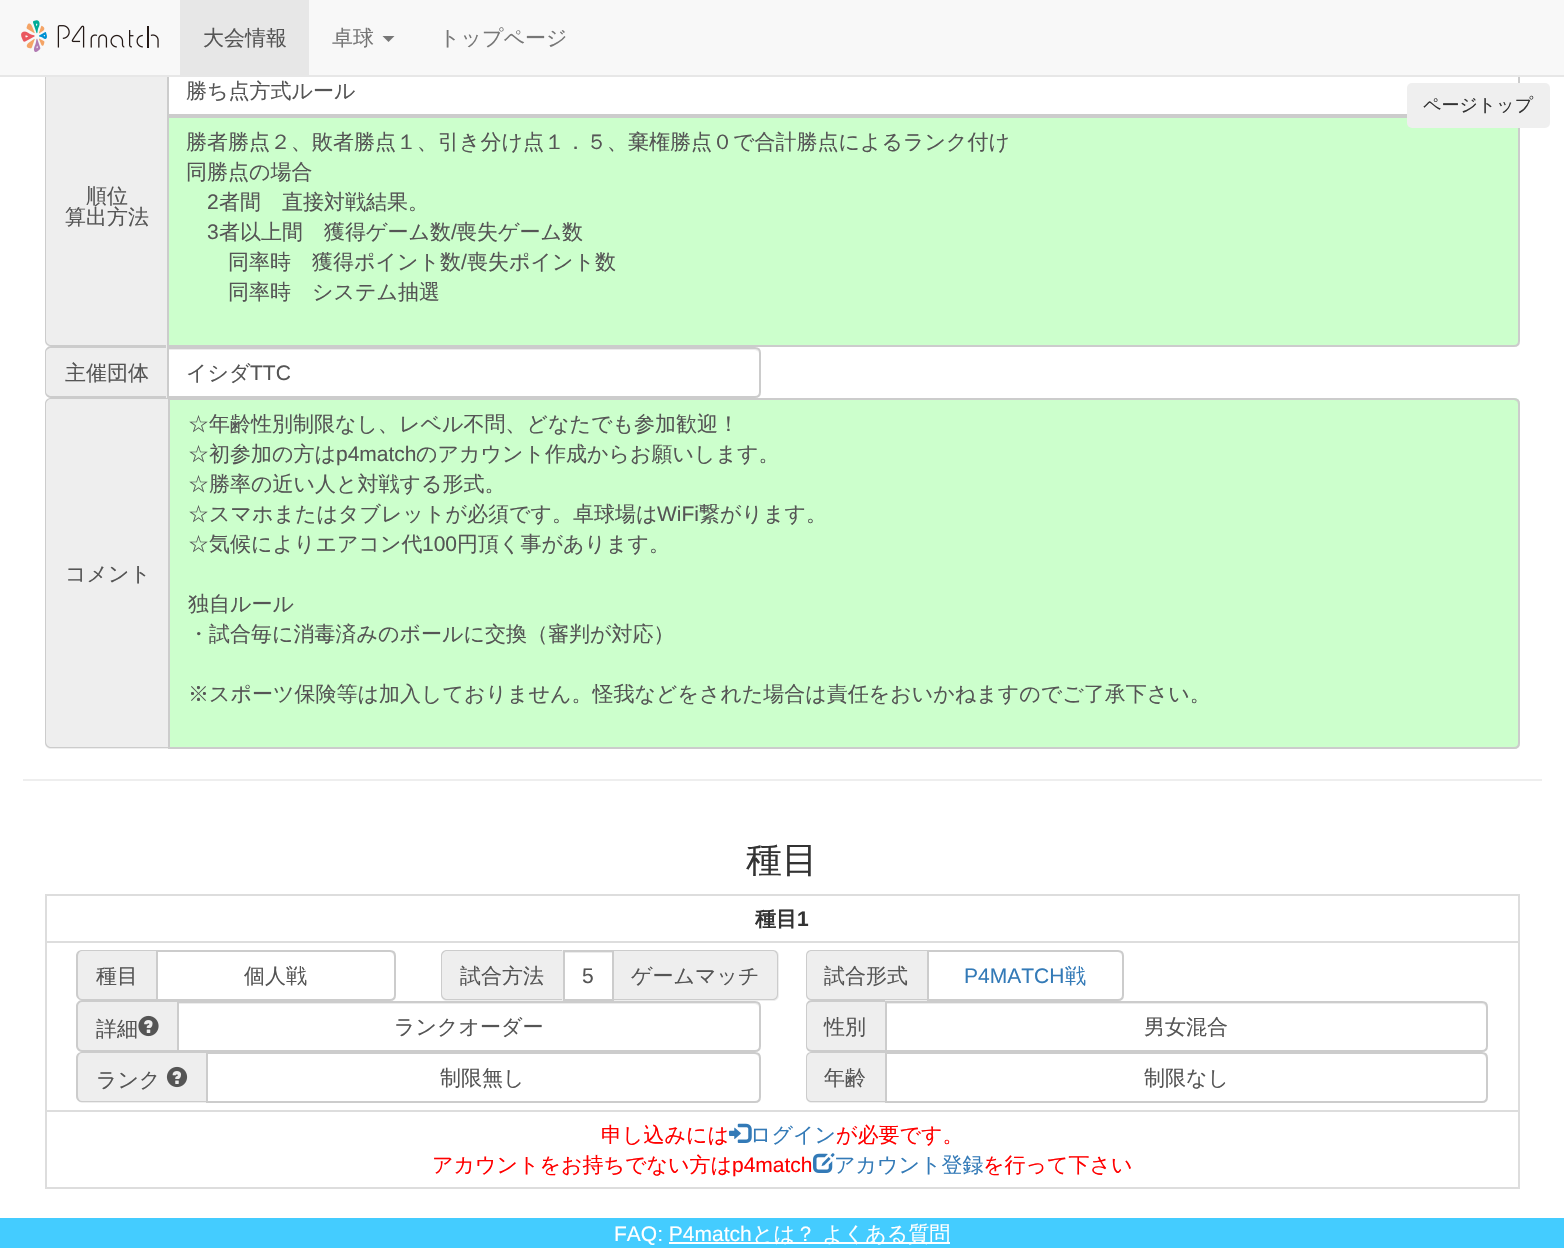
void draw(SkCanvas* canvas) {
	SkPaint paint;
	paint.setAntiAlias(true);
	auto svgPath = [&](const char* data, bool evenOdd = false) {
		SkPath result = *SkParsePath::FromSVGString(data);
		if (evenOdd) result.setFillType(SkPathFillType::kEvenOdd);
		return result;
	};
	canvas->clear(0xffffffff);
	paint.setStroke(true);
	paint.setStrokeWidth(2);
	paint.setColor(0xffcccccc);
	canvas->drawRect(SkRect::MakeXYWH(168, 66, 1351, 49), paint);
	paint.setStroke(false);
	paint.setColor(0xffeeeeee);
	canvas->drawPath(svgPath("M51 65H167V347H51C47.5 347 45 344.5 45 341V71C45 67.5 47.5 65 51 65Z"), paint);
	paint.setColor(0xffcccccc);
	canvas->drawPath(svgPath("M51 64H166V346H51C48 346 45 344 45 340V70C45 67 48 64 51 64ZM51 66H166V345H51C49 345 46 343 46 340V70C46 68 49 66 51 66Z", true), paint);
	paint.setColor(0xfff8f8f8);
	canvas->drawRect(SkRect::MakeXYWH(0, 0, 1564, 75), paint);
	paint.setColor(0xffe7e7e7);
	canvas->drawRect(SkRect::MakeXYWH(0, 75, 1564, 2), paint);
	canvas->drawImageRect(SkImages::DeferredFromEncodedData(SkData::MakeFromFileName("img1.png")), SkRect::MakeXYWH(21, 20, 138, 32), SkSamplingOptions());
	canvas->drawRect(SkRect::MakeXYWH(180, 0, 129, 75), paint);
	SkFont f1(fontMgr->matchFamilyStyle("WenQuanYi Zen Hei", SkFontStyle(500, SkFontStyle::kNormal_Width, SkFontStyle::kUpright_Slant)), 21);
	f1.setSubpixel(true);
	paint.setColor(0xff555555);
	canvas->drawString("大会情報", 203, 45, f1, paint);
	paint.setColor(0xff777777);
	canvas->drawString("卓球", 332, 45, f1, paint);
	canvas->drawPath(svgPath("M382.5 36H394.5L388.5 42Z"), paint);
	canvas->drawString("トップページ", 439, 45, f1, paint);
	paint.setColor(0xff555555);
	canvas->drawString("勝ち点方式ルール", 186, 98, f1, paint);
	canvas->drawString("順位", 86, 203, f1, paint);
	canvas->drawString("算出方法", 65, 224, f1, paint);
	paint.setColor(0xffccffcc);
	canvas->drawPath(svgPath("M168 117H1514C1517 117 1519 119 1519 122V341C1519 344 1517 346 1514 346H168Z"), paint);
	paint.setStroke(true);
	paint.setColor(0xffcccccc);
	canvas->drawPath(svgPath("M168 117H1514C1517 117 1519 119 1519 122V341C1519 344 1517 346 1514 346H168Z"), paint);
	paint.setStroke(false);
	paint.setColor(0xff555555);
	canvas->drawString("勝者勝点２、敗者勝点１、引き分け点１．５、棄権勝点０で合計勝点によるランク付け", 186, 149, f1, paint);
	canvas->drawString("同勝点の場合", 186, 179, f1, paint);
	SkFont f2(fontMgr->matchFamilyStyle("Liberation Sans", SkFontStyle::Normal()), 21);
	f2.setSubpixel(true);
	canvas->drawString("2", 207, 209, f2, paint);
	canvas->drawString("者間　直接対戦結果。", 219, 209, f1, paint);
	canvas->drawString("3", 207, 239, f2, paint);
	canvas->drawString("者以上間　獲得ゲーム数", 219, 239, f1, paint);
	canvas->drawString("/", 451, 239, f2, paint);
	canvas->drawString("喪失ゲーム数", 456, 239, f1, paint);
	canvas->drawString("同率時　獲得ポイント数", 228, 269, f1, paint);
	canvas->drawString("/", 461, 269, f2, paint);
	canvas->drawString("喪失ポイント数", 467, 269, f1, paint);
	canvas->drawString("同率時　システム抽選", 228, 299, f1, paint);
	paint.setColor(0xffeeeeee);
	canvas->drawPath(svgPath("M51 347H167V398H51C47.5 398 45 395.5 45 392V353C45 349.5 47.5 347 51 347Z"), paint);
	paint.setColor(0xffcccccc);
	canvas->drawPath(svgPath("M51 346H166V398H51C48 398 45 395 45 392V352C45 349 48 346 51 346ZM51 348H166V396H51C49 396 46 394 46 392V352C46 350 49 348 51 348Z", true), paint);
	paint.setColor(0xff555555);
	canvas->drawString("主催団体", 65, 380, f1, paint);
	paint.setColor(0xffececec);
	canvas->drawPath(svgPath("M168 350H754C757 350 759 352 759 354C759 351 757 348 754 348H168Z"), paint);
	paint.setStroke(true);
	paint.setColor(0xffcccccc);
	canvas->drawPath(svgPath("M168 348H755C758 348 760 350 760 353V392C760 395 758 397 755 397H168Z"), paint);
	paint.setStroke(false);
	paint.setColor(0xff555555);
	canvas->drawString("イシダ", 186, 380, f1, paint);
	canvas->drawString("TTC", 250, 380, f2, paint);
	paint.setColor(0xffeeeeee);
	canvas->drawPath(svgPath("M51 398H168V749H51C47.5 749 45 746.5 45 743V404C45 400.5 47.5 398 51 398Z"), paint);
	paint.setColor(0xffcccccc);
	canvas->drawPath(svgPath("M51 398H168V748H51C48 748 45 746 45 742V404C45 400 48 398 51 398ZM51 399H168V747H51C49 747 46 745 46 742V404C46 401 49 399 51 399Z", true), paint);
	paint.setColor(0xff555555);
	canvas->drawString("コメント", 65, 581, f1, paint);
	paint.setColor(0xffccffcc);
	canvas->drawPath(svgPath("M168 398H1514C1517.5 398 1520 400.5 1520 404V743C1520 746.5 1517.5 749 1514 749H168Z"), paint);
	paint.setColor(0xffbdecbd);
	canvas->drawPath(svgPath("M170 400H1514C1516 400 1518 403 1518 405C1518 402 1516 399 1513 399H170Z"), paint);
	paint.setStroke(true);
	paint.setColor(0xffcccccc);
	canvas->drawPath(svgPath("M169 399H1514C1517 399 1519 401 1519 404V743C1519 746 1517 748 1514 748H169Z"), paint);
	paint.setStroke(false);
	paint.setColor(0xff555555);
	canvas->drawString("☆年齢性別制限なし、レベル不問、どなたでも参加歓迎！", 188, 431, f1, paint);
	canvas->drawString("☆初参加の方は", 188, 461, f1, paint);
	canvas->drawString("p4match", 336, 461, f2, paint);
	canvas->drawString("のアカウント作成からお願いします。", 416, 461, f1, paint);
	canvas->drawString("☆勝率の近い人と対戦する形式。", 188, 491, f1, paint);
	canvas->drawString("☆スマホまたはタブレットが必須です。卓球場は", 188, 521, f1, paint);
	canvas->drawString("WiFi", 657, 521, f2, paint);
	canvas->drawString("繋がります。", 699, 521, f1, paint);
	canvas->drawString("☆気候によりエアコン代", 188, 551, f1, paint);
	canvas->drawString("100", 422, 551, f2, paint);
	canvas->drawString("円頂く事があります。", 457, 551, f1, paint);
	canvas->drawString("独自ルール", 188, 611, f1, paint);
	canvas->drawString("・試合毎に消毒済みのボールに交換（審判が対応）", 188, 641, f1, paint);
	canvas->drawString("※スポーツ保険等は加入しておりません。怪我などをされた場合は責任をおいかねますのでご了承下さい。", 188, 701, f1, paint);
	paint.setColor(0xffeeeeee);
	canvas->drawRect(SkRect::MakeXYWH(23, 779, 1519, 2), paint);
	SkFont f3(fontMgr->matchFamilyStyle("WenQuanYi Zen Hei", SkFontStyle(500, SkFontStyle::kNormal_Width, SkFontStyle::kUpright_Slant)), 36);
	f3.setSubpixel(true);
	paint.setColor(0xff333333);
	canvas->drawString("種目", 746, 872, f3, paint);
	paint.setColor(0xffdddddd);
	canvas->drawRect(SkRect::MakeXYWH(45, 894, 1475, 2), paint);
	canvas->drawRect(SkRect::MakeXYWH(1518, 894, 2, 294), paint);
	canvas->drawRect(SkRect::MakeXYWH(45, 1187, 1475, 2), paint);
	canvas->drawRect(SkRect::MakeXYWH(45, 894, 2, 294), paint);
	SkFont f4(fontMgr->matchFamilyStyle("WenQuanYi Zen Hei", SkFontStyle::Bold()), 21);
	f4.setSubpixel(true);
	paint.setColor(0xff333333);
	canvas->drawString("種目", 755, 926, f4, paint);
	SkFont f5(fontMgr->matchFamilyStyle("Liberation Sans", SkFontStyle::Bold()), 21);
	f5.setSubpixel(true);
	canvas->drawString("1", 797, 926, f5, paint);
	paint.setColor(0xffdddddd);
	canvas->drawRect(SkRect::MakeXYWH(45, 941, 1475, 2), paint);
	paint.setColor(0xffeeeeee);
	canvas->drawPath(svgPath("M83 950H156V1001H83C79.5 1001 77 998.5 77 995V956C77 952.5 79.5 950 83 950Z"), paint);
	paint.setColor(0xffcccccc);
	canvas->drawPath(svgPath("M82 950H156V1000H82C79 1000 76 998 76 994V956C76 952 79 950 82 950ZM82 951H156V999H82C80 999 78 997 78 994V956C78 953 80 951 82 951Z", true), paint);
	paint.setColor(0xff555555);
	canvas->drawString("種目", 96, 983, f1, paint);
	paint.setColor(0xffeeeeee);
	canvas->drawPath(svgPath("M83 1001H177V1052H83C79.5 1052 77 1049.5 77 1046V1007C77 1003.5 79.5 1001 83 1001Z"), paint);
	paint.setColor(0xffcccccc);
	canvas->drawPath(svgPath("M82 1000H177V1052H82C79 1052 76 1049 76 1046V1006C76 1003 79 1000 82 1000ZM82 1002H177V1050H82C80 1050 78 1048 78 1046V1006C78 1004 80 1002 82 1002Z", true), paint);
	paint.setColor(0xffffffff);
	canvas->drawPath(svgPath("M156 950H390C393.5 950 396 952.5 396 956V995C396 998.5 393.5 1001 390 1001H156Z"), paint);
	paint.setColor(0xffececec);
	canvas->drawPath(svgPath("M158 952H390C392 952 394 955 394 957V997C395 996 395 995 395 994V956C395 953 393 951 390 951H158Z"), paint);
	paint.setStroke(true);
	paint.setColor(0xffcccccc);
	canvas->drawPath(svgPath("M157 951H390C393 951 395 953 395 956V995C395 998 393 1000 390 1000H157Z"), paint);
	paint.setStroke(false);
	paint.setColor(0xff555555);
	canvas->drawString("個人戦", 244, 983, f1, paint);
	paint.setColor(0xffeeeeee);
	canvas->drawPath(svgPath("M447 950H563V1001H447C443.5 1001 441 998.5 441 995V956C441 952.5 443.5 950 447 950Z"), paint);
	paint.setColor(0xffcccccc);
	canvas->drawPath(svgPath("M447 950H562V1000H447C444 1000 441 998 441 994V956C441 952 444 950 447 950ZM447 951H562V999H447C445 999 442 997 442 994V956C442 953 445 951 447 951Z", true), paint);
	paint.setColor(0xff555555);
	canvas->drawString("試合方法", 460, 983, f1, paint);
	paint.setColor(0xffececec);
	canvas->drawRect(SkRect::MakeXYWH(564, 952, 48, 1), paint);
	paint.setStroke(true);
	paint.setColor(0xffcccccc);
	canvas->drawRect(SkRect::MakeXYWH(564, 951, 49, 49), paint);
	paint.setStroke(false);
	paint.setColor(0xff555555);
	canvas->drawString("5", 582, 983, f2, paint);
	paint.setColor(0xffeeeeee);
	canvas->drawPath(svgPath("M614 950H773C776.5 950 779 952.5 779 956V995C779 998.5 776.5 1001 773 1001H614Z"), paint);
	paint.setColor(0xffcccccc);
	canvas->drawPath(svgPath("M614 950H772C776 950 778 952 778 956V994C778 998 776 1000 772 1000H614ZM614 951H772C775 951 777 953 777 956V994C777 997 775 999 772 999H614Z", true), paint);
	paint.setColor(0xff555555);
	canvas->drawString("ゲームマッチ", 631, 983, f1, paint);
	paint.setColor(0xffeeeeee);
	canvas->drawPath(svgPath("M812 950H927V1001H812C808.5 1001 806 998.5 806 995V956C806 952.5 808.5 950 812 950Z"), paint);
	paint.setColor(0xffcccccc);
	canvas->drawPath(svgPath("M812 950H927V1000H812C808 1000 806 998 806 994V956C806 952 808 950 812 950ZM812 951H927V999H812C809 999 807 997 807 994V956C807 953 809 951 812 951Z", true), paint);
	paint.setColor(0xff555555);
	canvas->drawString("試合形式", 824, 983, f1, paint);
	paint.setColor(0xffececec);
	canvas->drawPath(svgPath("M929 951V952H1118C1120 952 1122 955 1122 957C1122 954 1120 951 1117 951Z"), paint);
	paint.setStroke(true);
	paint.setColor(0xffcccccc);
	canvas->drawPath(svgPath("M928 951H1118C1121 951 1123 953 1123 956V995C1123 998 1121 1000 1118 1000H928Z"), paint);
	paint.setStroke(false);
	paint.setColor(0xff337ab7);
	canvas->drawString("P4MATCH", 964, 983, f2, paint);
	canvas->drawString("戦", 1065, 983, f1, paint);
	paint.setColor(0xff555555);
	canvas->drawString("詳細", 96, 1036, f1, paint);
	canvas->drawImageRect(SkImages::DeferredFromEncodedData(SkData::MakeFromFileName("img2.png")), SkRect::MakeXYWH(138, 1015, 21, 22), SkSamplingOptions());
	paint.setColor(0xffececec);
	canvas->drawPath(svgPath("M179 1002V1004H754C757 1004 759 1006 759 1008C759 1005 757 1002 754 1002Z"), paint);
	paint.setStroke(true);
	paint.setColor(0xffcccccc);
	canvas->drawPath(svgPath("M178 1002H755C758 1002 760 1004 760 1007V1046C760 1049 758 1051 755 1051H178Z"), paint);
	paint.setStroke(false);
	paint.setColor(0xff555555);
	canvas->drawString("ランクオーダー", 394, 1034, f1, paint);
	paint.setColor(0xffeeeeee);
	canvas->drawPath(svgPath("M812 1001H885V1052H812C808.5 1052 806 1049.5 806 1046V1007C806 1003.5 808.5 1001 812 1001Z"), paint);
	paint.setColor(0xffcccccc);
	canvas->drawPath(svgPath("M812 1000H885V1052H812C808 1052 806 1049 806 1046V1006C806 1003 808 1000 812 1000ZM812 1002H885V1050H812C809 1050 807 1048 807 1046V1006C807 1004 809 1002 812 1002Z", true), paint);
	paint.setColor(0xff555555);
	canvas->drawString("性別", 824, 1034, f1, paint);
	paint.setColor(0xffececec);
	canvas->drawPath(svgPath("M887 1002V1004H1482C1484 1004 1486 1006 1486 1008V1048C1487 1047 1487 1046 1487 1045V1007C1487 1004 1485 1002 1482 1002Z"), paint);
	paint.setStroke(true);
	paint.setColor(0xffcccccc);
	canvas->drawPath(svgPath("M886 1002H1482C1485 1002 1487 1004 1487 1007V1046C1487 1049 1485 1051 1482 1051H886Z"), paint);
	paint.setStroke(false);
	paint.setColor(0xff555555);
	canvas->drawString("男女混合", 1144, 1034, f1, paint);
	paint.setColor(0xffeeeeee);
	canvas->drawPath(svgPath("M83 1052H206V1103H83C79.5 1103 77 1100.5 77 1097V1058C77 1054.5 79.5 1052 83 1052Z"), paint);
	paint.setColor(0xffcccccc);
	canvas->drawPath(svgPath("M82 1052H206V1102H82C79 1102 76 1100 76 1096V1058C76 1054 79 1052 82 1052ZM82 1053H206V1101H82C80 1101 78 1099 78 1096V1058C78 1055 80 1053 82 1053Z", true), paint);
	paint.setColor(0xff555555);
	canvas->drawString("ランク", 96, 1087, f1, paint);
	canvas->drawImageRect(SkImages::DeferredFromEncodedData(SkData::MakeFromFileName("img3.png")), SkRect::MakeXYWH(166, 1066, 22, 22), SkSamplingOptions());
	paint.setColor(0xffececec);
	canvas->drawPath(svgPath("M207 1054H754C757 1054 759 1057 759 1059C759 1056 757 1053 754 1053H207Z"), paint);
	paint.setStroke(true);
	paint.setColor(0xffcccccc);
	canvas->drawPath(svgPath("M207 1053H755C758 1053 760 1055 760 1058V1097C760 1100 758 1102 755 1102H207Z"), paint);
	paint.setStroke(false);
	paint.setColor(0xff555555);
	canvas->drawString("制限無し", 440, 1085, f1, paint);
	paint.setColor(0xffeeeeee);
	canvas->drawPath(svgPath("M812 1052H885V1103H812C808.5 1103 806 1100.5 806 1097V1058C806 1054.5 808.5 1052 812 1052Z"), paint);
	paint.setColor(0xffcccccc);
	canvas->drawPath(svgPath("M812 1052H885V1102H812C808 1102 806 1100 806 1096V1058C806 1054 808 1052 812 1052ZM812 1053H885V1101H812C809 1101 807 1099 807 1096V1058C807 1055 809 1053 812 1053Z", true), paint);
	paint.setColor(0xff555555);
	canvas->drawString("年齢", 824, 1085, f1, paint);
	paint.setColor(0xffececec);
	canvas->drawPath(svgPath("M887 1053V1054H1482C1484 1054 1486 1057 1486 1059V1099C1487 1098 1487 1097 1487 1096V1058C1487 1055 1485 1053 1482 1053Z"), paint);
	paint.setStroke(true);
	paint.setColor(0xffcccccc);
	canvas->drawPath(svgPath("M886 1053H1482C1485 1053 1487 1055 1487 1058V1097C1487 1100 1485 1102 1482 1102H886Z"), paint);
	paint.setStroke(false);
	paint.setColor(0xff555555);
	canvas->drawString("制限なし", 1144, 1085, f1, paint);
	paint.setColor(0xffdddddd);
	canvas->drawRect(SkRect::MakeXYWH(45, 1110, 1475, 2), paint);
	paint.setColor(0xffff0000);
	canvas->drawString("申し込みには", 601, 1142, f1, paint);
	canvas->drawImageRect(SkImages::DeferredFromEncodedData(SkData::MakeFromFileName("img4.png")), SkRect::MakeXYWH(729, 1123, 23, 20), SkSamplingOptions());
	paint.setColor(0xff337ab7);
	canvas->drawString("ログイン", 750, 1142, f1, paint);
	paint.setColor(0xffff0000);
	canvas->drawString("が必要です。", 836, 1142, f1, paint);
	canvas->drawString("アカウントをお持ちでない方は", 432, 1172, f1, paint);
	canvas->drawString("p4match", 732, 1172, f2, paint);
	canvas->drawImageRect(SkImages::DeferredFromEncodedData(SkData::MakeFromFileName("img5.png")), SkRect::MakeXYWH(813, 1153, 22, 20), SkSamplingOptions());
	paint.setColor(0xff337ab7);
	canvas->drawString("アカウント登録", 834, 1172, f1, paint);
	paint.setColor(0xffff0000);
	canvas->drawString("を行って下さい", 983, 1172, f1, paint);
	paint.setColor(0xffefefef);
	canvas->drawRoundRect(SkRect::MakeXYWH(1407, 83, 143, 45), 5, 5, paint);
	SkFont f6(fontMgr->matchFamilyStyle("WenQuanYi Zen Hei", SkFontStyle(500, SkFontStyle::kNormal_Width, SkFontStyle::kUpright_Slant)), 18);
	f6.setSubpixel(true);
	paint.setColor(0xff333333);
	canvas->drawString("ページトップ", 1423, 111, f6, paint);
	paint.setColor(0xff44ccff);
	canvas->drawRect(SkRect::MakeXYWH(0, 1218, 1564, 30), paint);
	paint.setColor(0xffffffff);
	canvas->drawString("FAQ: P4match", 614, 1241, f2, paint);
	canvas->drawRect(SkRect::MakeXYWH(669, 1242, 281, 2), paint);
	canvas->drawString("とは？ よくある質問", 752, 1241, f1, paint);
}
